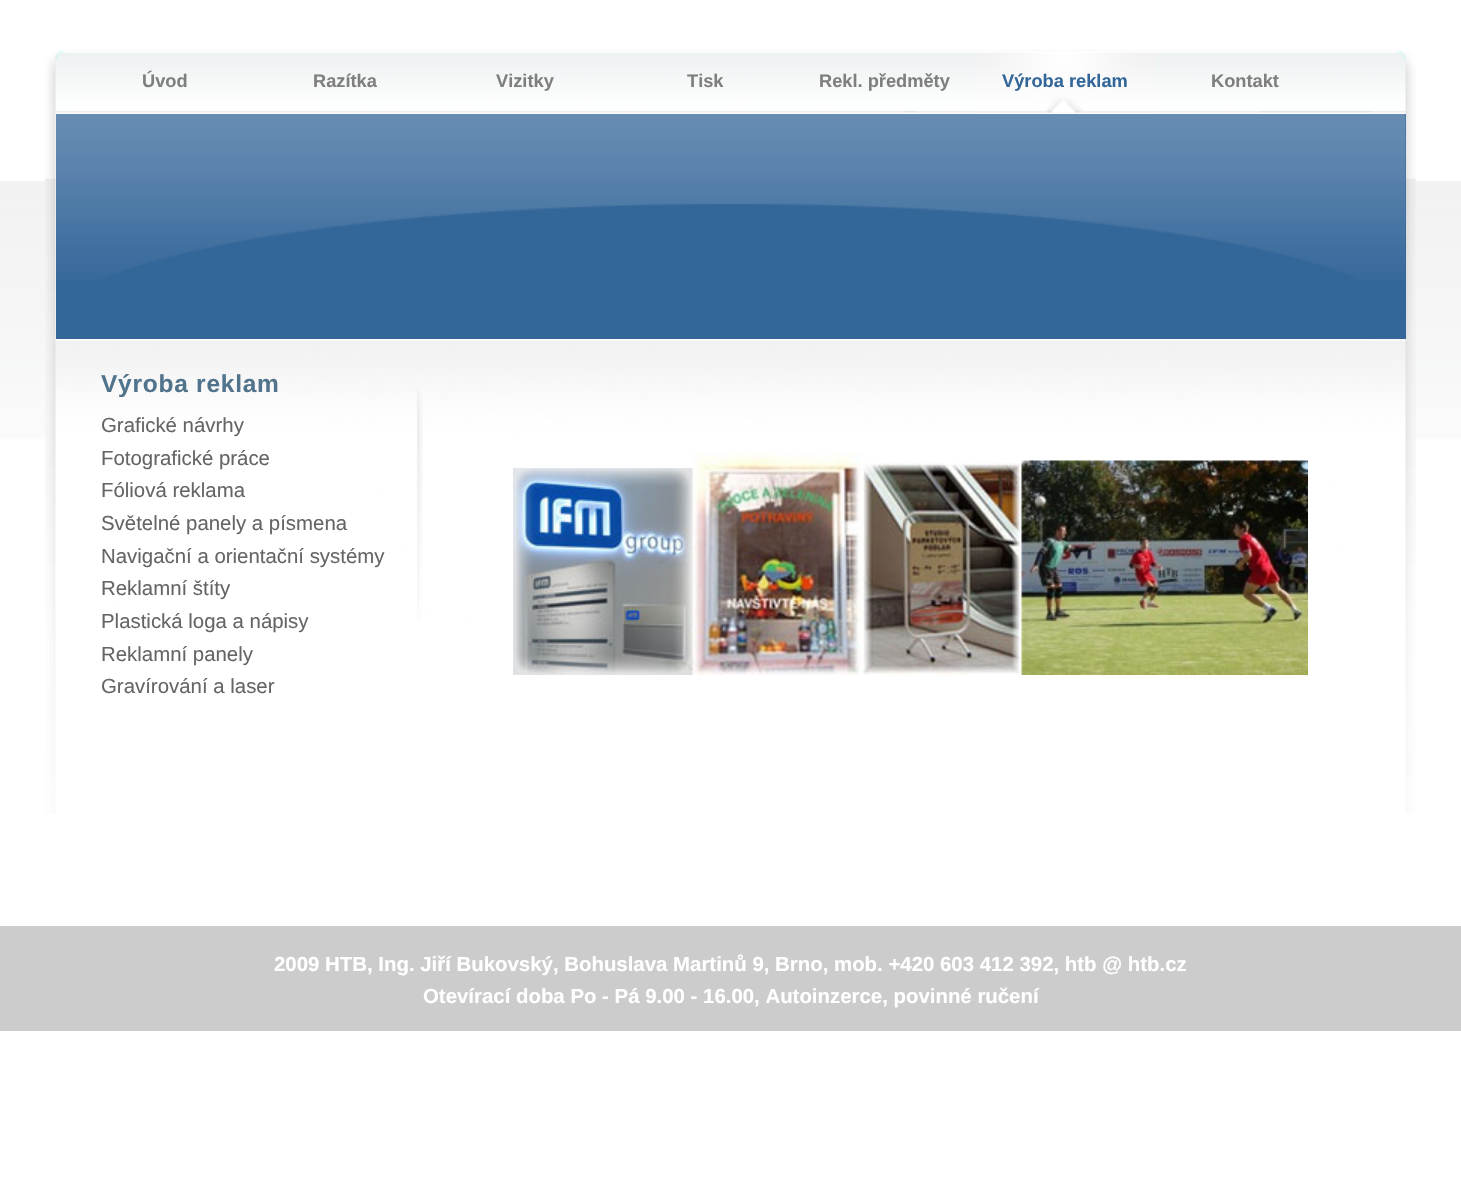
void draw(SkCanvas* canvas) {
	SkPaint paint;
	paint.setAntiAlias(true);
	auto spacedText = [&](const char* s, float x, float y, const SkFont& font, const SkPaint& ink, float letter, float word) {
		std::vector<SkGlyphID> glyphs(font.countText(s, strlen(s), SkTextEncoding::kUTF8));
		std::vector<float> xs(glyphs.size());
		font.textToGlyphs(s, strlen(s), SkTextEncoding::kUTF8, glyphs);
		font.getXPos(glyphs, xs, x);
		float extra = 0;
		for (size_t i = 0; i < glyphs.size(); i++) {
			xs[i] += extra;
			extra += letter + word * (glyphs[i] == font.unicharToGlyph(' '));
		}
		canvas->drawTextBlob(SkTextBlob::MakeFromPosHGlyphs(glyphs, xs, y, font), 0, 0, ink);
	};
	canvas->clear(0xffffffff);
	canvas->drawImageRect(SkImages::DeferredFromEncodedData(SkData::MakeFromFileName("img1.png")), SkRect::MakeXYWH(0, 181, 1461, 258), SkSamplingOptions());
	canvas->drawImageRect(SkImages::DeferredFromEncodedData(SkData::MakeFromFileName("img2.png")), SkRect::MakeXYWH(45, 340, 1371, 474), SkSamplingOptions());
	canvas->drawImageRect(SkImages::DeferredFromEncodedData(SkData::MakeFromFileName("img3.png")), SkRect::MakeXYWH(45, 50, 1371, 291), SkSamplingOptions());
	SkFont f1(fontMgr->matchFamilyStyle("Liberation Sans", SkFontStyle::Bold()), 18.25);
	f1.setSubpixel(true);
	paint.setColor(0xff7f7f7f);
	canvas->drawString("Úvod", 142, 87, f1, paint);
	canvas->drawString("Razítka", 313, 87, f1, paint);
	canvas->drawString("Vizitky", 496, 87, f1, paint);
	canvas->drawString("Tisk", 687, 87, f1, paint);
	canvas->drawString("Rekl. předměty", 819, 87, f1, paint);
	canvas->drawImageRect(SkImages::DeferredFromEncodedData(SkData::MakeFromFileName("img4.png")), SkRect::MakeXYWH(977, 52, 178, 61), SkSamplingOptions());
	paint.setColor(0xff336699);
	canvas->drawString("Výroba reklam", 1002, 87, f1, paint);
	paint.setColor(0xff7f7f7f);
	canvas->drawString("Kontakt", 1211, 87, f1, paint);
	paint.setColor(0xff336699);
	canvas->drawRect(SkRect::MakeXYWH(56, 114, 1350, 225), paint);
	canvas->drawImageRect(SkImages::DeferredFromEncodedData(SkData::MakeFromFileName("img5.png")), SkRect::MakeXYWH(56, 114, 1350, 166), SkSamplingOptions());
	SkFont f2(fontMgr->matchFamilyStyle("Liberation Sans", SkFontStyle::Bold()), 24.5);
	f2.setSubpixel(true);
	paint.setColor(0xff51748c);
	spacedText("Výroba reklam", 101, 392, f2, paint, 0.75, 0);
	SkFont f3(fontMgr->matchFamilyStyle("Liberation Sans", SkFontStyle::Normal()), 20.4);
	f3.setSubpixel(true);
	paint.setColor(0xff656565);
	canvas->drawString("Grafické návrhy", 101, 432, f3, paint);
	canvas->drawString("Fotografické práce", 101, 465, f3, paint);
	canvas->drawString("Fóliová reklama", 101, 497, f3, paint);
	canvas->drawString("Světelné panely a písmena", 101, 530, f3, paint);
	canvas->drawString("Navigační a orientační systémy", 101, 563, f3, paint);
	canvas->drawString("Reklamní štíty", 101, 595, f3, paint);
	canvas->drawString("Plastická loga a nápisy", 101, 628, f3, paint);
	canvas->drawString("Reklamní panely", 101, 661, f3, paint);
	canvas->drawString("Gravírování a laser", 101, 693, f3, paint);
	canvas->drawImageRect(SkImages::DeferredFromEncodedData(SkData::MakeFromFileName("img6.png")), SkRect::MakeXYWH(417, 389, 6, 233), SkSamplingOptions());
	canvas->drawImageRect(SkImages::DeferredFromEncodedData(SkData::MakeFromFileName("img7.png")), SkRect::MakeXYWH(513, 468, 180, 207), SkSamplingOptions());
	canvas->drawImageRect(SkImages::DeferredFromEncodedData(SkData::MakeFromFileName("img8.png")), SkRect::MakeXYWH(693, 453, 169, 222), SkSamplingOptions());
	canvas->drawImageRect(SkImages::DeferredFromEncodedData(SkData::MakeFromFileName("img9.png")), SkRect::MakeXYWH(862, 463, 159, 212), SkSamplingOptions());
	canvas->drawImageRect(SkImages::DeferredFromEncodedData(SkData::MakeFromFileName("img10.png")), SkRect::MakeXYWH(1021, 460, 287, 215), SkSamplingOptions());
	paint.setColor(0xffcccccc);
	canvas->drawRect(SkRect::MakeXYWH(0, 926, 1461, 105), paint);
	SkFont f4(fontMgr->matchFamilyStyle("Liberation Sans", SkFontStyle::Bold()), 20.4);
	f4.setSubpixel(true);
	paint.setColor(0xffffffff);
	canvas->drawString("2009 HTB, Ing. Jiří Bukovský, Bohuslava Martinů 9, Brno, mob. +420 603 412 392, htb @ htb.cz", 274, 971, f4, paint);
	canvas->drawString("Otevírací doba Po - Pá 9.00 - 16.00, Autoinzerce, povinné ručení", 423, 1003, f4, paint);
}
